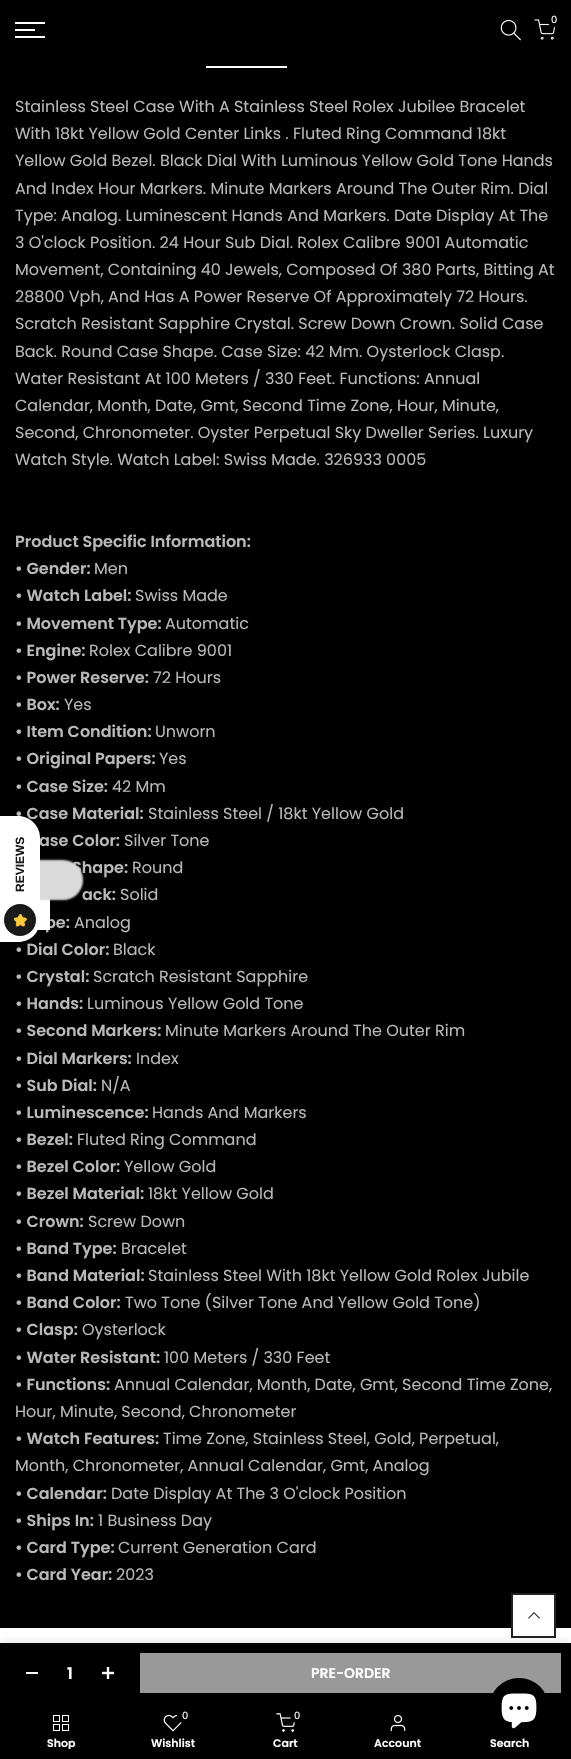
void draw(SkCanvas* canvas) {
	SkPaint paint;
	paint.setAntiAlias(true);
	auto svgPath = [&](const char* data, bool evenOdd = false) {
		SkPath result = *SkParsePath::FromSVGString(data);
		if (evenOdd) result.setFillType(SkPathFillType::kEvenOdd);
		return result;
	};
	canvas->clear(0xff000000);
	canvas->drawImageRect(SkImages::DeferredFromEncodedData(SkData::MakeFromFileName("img1.png")), SkRect::MakeXYWH(500, 19, 21, 22), SkSamplingOptions());
	canvas->drawImageRect(SkImages::DeferredFromEncodedData(SkData::MakeFromFileName("img2.png")), SkRect::MakeXYWH(534, 19, 22, 21), SkSamplingOptions());
	paint.setColor(0x4d000000);
	paint.setMaskFilter(SkMaskFilter::MakeBlur(kNormal_SkBlurStyle, 1.5));
	canvas->drawRoundRect(SkRect::MakeXYWH(548, 13, 15, 15), 7.5, 7.5, paint);
	paint.setMaskFilter(nullptr);
	paint.setColor(0xff000000);
	canvas->drawCircle(554.5, 19.5, 7.5, paint);
	SkFont f1(fontMgr->matchFamilyStyle("Poppins", SkFontStyle::Normal()), 10);
	f1.setSubpixel(true);
	paint.setColor(0xffffffff);
	canvas->drawString("0", 551, 23, f1, paint);
	canvas->drawRect(SkRect::MakeXYWH(15, 22, 30, 2), paint);
	canvas->drawRect(SkRect::MakeXYWH(15, 29, 20, 2), paint);
	canvas->drawRect(SkRect::MakeXYWH(15, 36, 30, 2), paint);
	canvas->drawRect(SkRect::MakeXYWH(206, 66, 81, 2), paint);
	SkFont f2(fontMgr->matchFamilyStyle("Poppins", SkFontStyle::Normal()), 16);
	f2.setSubpixel(true);
	paint.setColor(0xffb9b9b9);
	canvas->drawString("Stainless Steel Case With A Stainless Steel Rolex Jubilee Bracelet", 15, 112, f2, paint);
	canvas->drawString("With 18kt Yellow Gold Center Links . Fluted Ring Command 18kt", 15, 139, f2, paint);
	canvas->drawString("Yellow Gold Bezel. Black Dial With Luminous Yellow Gold Tone Hands", 15, 166, f2, paint);
	canvas->drawString("And Index Hour Markers. Minute Markers Around The Outer Rim. Dial", 15, 194, f2, paint);
	canvas->drawString("Type: Analog. Luminescent Hands And Markers. Date Display At The", 15, 221, f2, paint);
	canvas->drawString("3 O'clock Position. 24 Hour Sub Dial. Rolex Calibre 9001 Automatic", 15, 248, f2, paint);
	canvas->drawString("Movement, Containing 40 Jewels, Composed Of 380 Parts, Bitting At", 15, 275, f2, paint);
	canvas->drawString("28800 Vph, And Has A Power Reserve Of Approximately 72 Hours.", 15, 302, f2, paint);
	canvas->drawString("Scratch Resistant Sapphire Crystal. Screw Down Crown. Solid Case", 15, 329, f2, paint);
	canvas->drawString("Back. Round Case Shape. Case Size: 42 Mm. Oysterlock Clasp.", 15, 357, f2, paint);
	canvas->drawString("Water Resistant At 100 Meters / 330 Feet. Functions: Annual", 15, 384, f2, paint);
	canvas->drawString("Calendar, Month, Date, Gmt, Second Time Zone, Hour, Minute,", 15, 411, f2, paint);
	canvas->drawString("Second, Chronometer. Oyster Perpetual Sky Dweller Series. Luxury", 15, 438, f2, paint);
	canvas->drawString("Watch Style. Watch Label: Swiss Made. 326933 0005", 15, 465, f2, paint);
	SkFont f3(fontMgr->matchFamilyStyle("Poppins", SkFontStyle(600, SkFontStyle::kNormal_Width, SkFontStyle::kUpright_Slant)), 16);
	f3.setSubpixel(true);
	canvas->drawString("Product Specific Information:", 15, 547, f3, paint);
	canvas->drawString("• Gender:", 15, 574, f3, paint);
	canvas->drawString("Men", 94, 574, f2, paint);
	canvas->drawString("• Watch Label:", 15, 601, f3, paint);
	canvas->drawString("Swiss Made", 135, 601, f2, paint);
	canvas->drawString("• Movement Type:", 15, 629, f3, paint);
	canvas->drawString("Automatic", 165, 629, f2, paint);
	canvas->drawString("• Engine:", 15, 656, f3, paint);
	canvas->drawString("Rolex Calibre 9001", 89, 656, f2, paint);
	canvas->drawString("• Power Reserve:", 15, 683, f3, paint);
	canvas->drawString("72 Hours", 153, 683, f2, paint);
	canvas->drawString("• Box:", 15, 710, f3, paint);
	canvas->drawString("Yes", 64, 710, f2, paint);
	canvas->drawString("• Item Condition:", 15, 737, f3, paint);
	canvas->drawString("Unworn", 155, 737, f2, paint);
	canvas->drawString("• Original Papers:", 15, 764, f3, paint);
	canvas->drawString("Yes", 159, 764, f2, paint);
	canvas->drawString("• Case Size:", 15, 792, f3, paint);
	canvas->drawString("42 Mm", 112, 792, f2, paint);
	canvas->drawString("• Case Material:", 15, 819, f3, paint);
	canvas->drawString("Stainless Steel / 18kt Yellow Gold", 148, 819, f2, paint);
	canvas->drawString("ase Color:", 39, 846, f3, paint);
	canvas->drawString("Silver Tone", 124, 846, f2, paint);
	canvas->drawString("Shape:", 72, 873, f3, paint);
	canvas->drawString("Round", 132, 873, f2, paint);
	canvas->drawString("ack:", 82, 900, f3, paint);
	canvas->drawString("Solid", 120, 900, f2, paint);
	canvas->drawString("pe:", 45, 928, f3, paint);
	canvas->drawString("Analog", 74, 928, f2, paint);
	canvas->drawString("• Dial Color:", 15, 955, f3, paint);
	canvas->drawString("Black", 113, 955, f2, paint);
	canvas->drawString("• Crystal:", 15, 982, f3, paint);
	canvas->drawString("Scratch Resistant Sapphire", 93, 982, f2, paint);
	canvas->drawString("• Hands:", 15, 1009, f3, paint);
	canvas->drawString("Luminous Yellow Gold Tone", 87, 1009, f2, paint);
	canvas->drawString("• Second Markers:", 15, 1036, f3, paint);
	canvas->drawString("Minute Markers Around The Outer Rim", 165, 1036, f2, paint);
	canvas->drawString("• Dial Markers:", 15, 1064, f3, paint);
	canvas->drawString("Index", 136, 1064, f2, paint);
	canvas->drawString("• Sub Dial:", 15, 1091, f3, paint);
	canvas->drawString("N/A", 101, 1091, f2, paint);
	canvas->drawString("• Luminescence:", 15, 1118, f3, paint);
	canvas->drawString("Hands And Markers", 152, 1118, f2, paint);
	canvas->drawString("• Bezel:", 15, 1145, f3, paint);
	canvas->drawString("Fluted Ring Command", 77, 1145, f2, paint);
	canvas->drawString("• Bezel Color:", 15, 1172, f3, paint);
	canvas->drawString("Yellow Gold", 124, 1172, f2, paint);
	canvas->drawString("• Bezel Material:", 15, 1199, f3, paint);
	canvas->drawString("18kt Yellow Gold", 148, 1199, f2, paint);
	canvas->drawString("• Crown:", 15, 1227, f3, paint);
	canvas->drawString("Screw Down", 88, 1227, f2, paint);
	canvas->drawString("• Band Type:", 15, 1254, f3, paint);
	canvas->drawString("Bracelet", 121, 1254, f2, paint);
	canvas->drawString("• Band Material:", 15, 1281, f3, paint);
	canvas->drawString("Stainless Steel With 18kt Yellow Gold Rolex Jubile", 148, 1281, f2, paint);
	canvas->drawString("• Band Color:", 15, 1308, f3, paint);
	canvas->drawString("Two Tone (Silver Tone And Yellow Gold Tone)", 125, 1308, f2, paint);
	canvas->drawString("• Clasp:", 15, 1335, f3, paint);
	canvas->drawString("Oysterlock", 82, 1335, f2, paint);
	canvas->drawString("• Water Resistant:", 15, 1363, f3, paint);
	canvas->drawString("100 Meters / 330 Feet", 164, 1363, f2, paint);
	canvas->drawString("• Functions:", 15, 1390, f3, paint);
	canvas->drawString("Annual Calendar, Month, Date, Gmt, Second Time Zone,", 114, 1390, f2, paint);
	canvas->drawString("Hour, Minute, Second, Chronometer", 15, 1417, f2, paint);
	canvas->drawString("• Watch Features:", 15, 1444, f3, paint);
	canvas->drawString("Time Zone, Stainless Steel, Gold, Perpetual,", 163, 1444, f2, paint);
	canvas->drawString("Month, Chronometer, Annual Calendar, Gmt, Analog", 15, 1471, f2, paint);
	canvas->drawString("• Calendar:", 15, 1499, f3, paint);
	canvas->drawString("Date Display At The 3 O'clock Position", 111, 1499, f2, paint);
	canvas->drawString("• Ships In:", 15, 1526, f3, paint);
	canvas->drawString("1 Business Day", 98, 1526, f2, paint);
	canvas->drawString("• Card Type:", 15, 1553, f3, paint);
	canvas->drawString("Current Generation Card", 118, 1553, f2, paint);
	canvas->drawString("• Card Year:", 15, 1580, f3, paint);
	canvas->drawString("2023", 116, 1580, f2, paint);
	paint.setColor(0x26000000);
	paint.setMaskFilter(SkMaskFilter::MakeBlur(kNormal_SkBlurStyle, 1.5));
	canvas->drawRect(SkRect::MakeXYWH(0, 880, 50, 50), paint);
	paint.setMaskFilter(nullptr);
	paint.setColor(0xffffffff);
	canvas->drawRect(SkRect::MakeXYWH(37, 898, 13, 32), paint);
	canvas->drawRect(SkRect::MakeXYWH(0, 1628, 571, 15), paint);
	paint.setColor(0xffdadada);
	paint.setMaskFilter(SkMaskFilter::MakeBlur(kNormal_SkBlurStyle, 1));
	canvas->drawRoundRect(SkRect::MakeXYWH(-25, 860, 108, 40), 22, 22, paint);
	paint.setMaskFilter(nullptr);
	paint.setColor(0xffffffff);
	canvas->drawPath(svgPath("M0 942V816H18C30 816 40 826 40 838V920C40 933 30 942 18 942Z"), paint);
	SkFont f4(fontMgr->matchFamilyStyle("Liberation Sans", SkFontStyle::Bold()), 12);
	f4.setSubpixel(true);
	paint.setColor(0xff1a1a1a);
	canvas->save();
	canvas->rotate(-90, 24, 892);
	canvas->drawString("REVIEWS", 24, 892, f4, paint);
	canvas->restore();
	canvas->drawCircle(20, 920, 16, paint);
	canvas->drawImageRect(SkImages::DeferredFromEncodedData(SkData::MakeFromFileName("img3.png")), SkRect::MakeXYWH(13, 914, 14, 13), SkSamplingOptions());
	paint.setColor(0xffffffff);
	canvas->drawRect(SkRect::MakeXYWH(513, 1595, 41, 33), paint);
	paint.setStroke(true);
	paint.setStrokeWidth(2);
	paint.setColor(0xff222222);
	canvas->drawRect(SkRect::MakeXYWH(512, 1594, 43, 43), paint);
	canvas->drawImageRect(SkImages::DeferredFromEncodedData(SkData::MakeFromFileName("img4.png")), SkRect::MakeXYWH(528, 1612, 12, 7), SkSamplingOptions());
	canvas->drawImageRect(SkImages::DeferredFromEncodedData(SkData::MakeFromFileName("img7.png")), SkRect::MakeXYWH(53, 1715, 16, 16), SkSamplingOptions());
	canvas->drawImageRect(SkImages::DeferredFromEncodedData(SkData::MakeFromFileName("img8.png")), SkRect::MakeXYWH(163, 1714, 19, 18), SkSamplingOptions());
	paint.setStroke(false);
	paint.setColor(0x4d000000);
	paint.setMaskFilter(SkMaskFilter::MakeBlur(kNormal_SkBlurStyle, 1.5));
	canvas->drawRoundRect(SkRect::MakeXYWH(178, 1709, 15, 15), 7.5, 7.5, paint);
	paint.setMaskFilter(nullptr);
	paint.setColor(0xff000000);
	canvas->drawCircle(184.5, 1715.5, 7.5, paint);
	canvas->drawImageRect(SkImages::DeferredFromEncodedData(SkData::MakeFromFileName("img9.png")), SkRect::MakeXYWH(276, 1713, 19, 19), SkSamplingOptions());
	paint.setColor(0x4d000000);
	paint.setMaskFilter(SkMaskFilter::MakeBlur(kNormal_SkBlurStyle, 1.5));
	canvas->drawRoundRect(SkRect::MakeXYWH(291, 1709, 15, 15), 7.5, 7.5, paint);
	paint.setMaskFilter(nullptr);
	paint.setColor(0xff000000);
	canvas->drawCircle(297.5, 1715.5, 7.5, paint);
	canvas->drawImageRect(SkImages::DeferredFromEncodedData(SkData::MakeFromFileName("img10.png")), SkRect::MakeXYWH(390, 1714, 16, 18), SkSamplingOptions());
	paint.setColor(0x1f000000);
	paint.setMaskFilter(SkMaskFilter::MakeBlur(kNormal_SkBlurStyle, 4.5));
	canvas->drawRect(SkRect::MakeXYWH(0, 1643, 571, 61), paint);
	paint.setMaskFilter(nullptr);
	paint.setColor(0xffffffff);
	canvas->drawRect(SkRect::MakeXYWH(26, 1672, 12, 2), paint);
	canvas->drawString("1", 67, 1679, f3, paint);
	canvas->drawImageRect(SkImages::DeferredFromEncodedData(SkData::MakeFromFileName("img5.png")), SkRect::MakeXYWH(102, 1667, 12, 12), SkSamplingOptions());
	paint.setColor(0xff999999);
	canvas->drawRect(SkRect::MakeXYWH(140, 1653, 421, 40), paint);
	SkFont f5(fontMgr->matchFamilyStyle("Poppins", SkFontStyle(600, SkFontStyle::kNormal_Width, SkFontStyle::kUpright_Slant)), 14);
	f5.setSubpixel(true);
	paint.setColor(0xffffffff);
	canvas->drawString("PRE-ORDER", 311, 1678, f5, paint);
	paint.setColor(0xff000000);
	canvas->drawCircle(519, 1708, 30, paint);
	canvas->drawImageRect(SkImages::DeferredFromEncodedData(SkData::MakeFromFileName("img6.png")), SkRect::MakeXYWH(501, 1693, 36, 36), SkSamplingOptions());
	canvas->save();
	canvas->clipRect(SkRect::MakeXYWH(15, 1738, 92, 11));
	SkFont f6(fontMgr->matchFamilyStyle("Poppins", SkFontStyle(600, SkFontStyle::kNormal_Width, SkFontStyle::kUpright_Slant)), 11);
	f6.setSubpixel(true);
	paint.setColor(0xffffffff);
	canvas->drawString("Shop", 47, 1747, f6, paint);
	canvas->restore();
	canvas->drawString("0", 182, 1719, f1, paint);
	canvas->drawString("Wishlist", 151, 1747, f6, paint);
	canvas->drawString("0", 294, 1719, f1, paint);
	canvas->drawString("Cart", 273, 1747, f6, paint);
	canvas->drawString("Account", 374, 1747, f6, paint);
	canvas->drawString("Search", 490, 1747, f6, paint);
}
